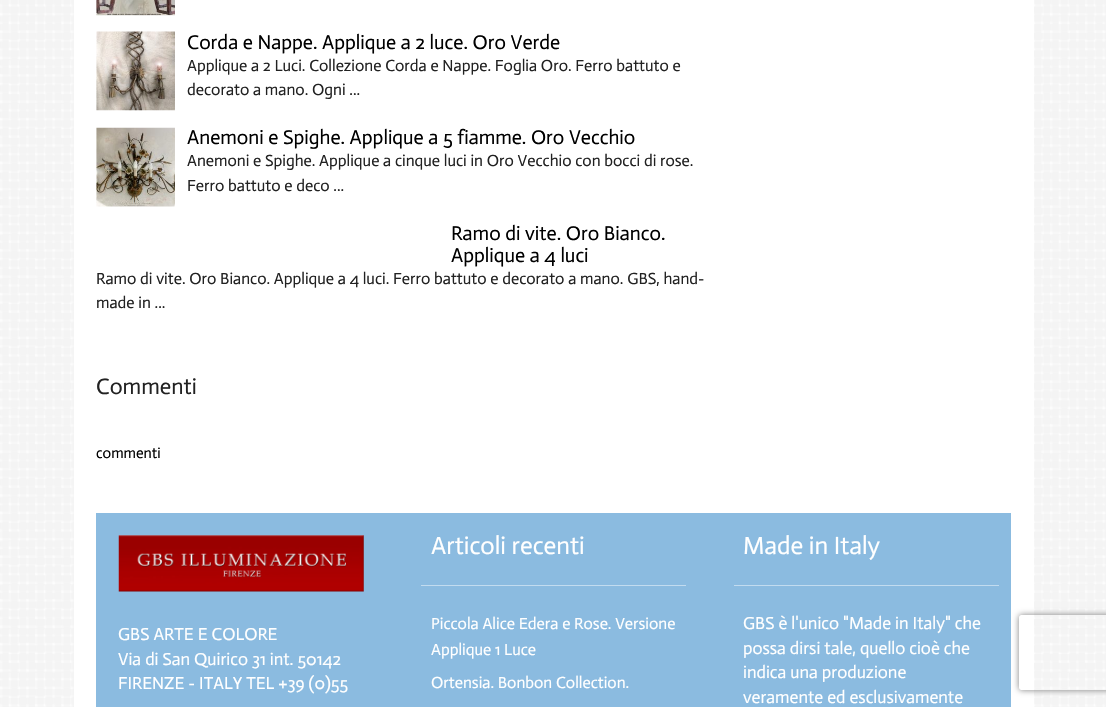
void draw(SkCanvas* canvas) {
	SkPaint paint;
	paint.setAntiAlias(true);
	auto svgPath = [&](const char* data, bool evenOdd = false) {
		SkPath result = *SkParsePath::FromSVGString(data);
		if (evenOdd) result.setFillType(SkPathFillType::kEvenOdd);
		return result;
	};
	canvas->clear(0xffffffff);
	canvas->drawImageRect(SkImages::DeferredFromEncodedData(SkData::MakeFromFileName("img1.png")), SkRect::MakeXYWH(0, 0, 1106, 707), SkSamplingOptions());
	paint.setColor(0xffffffff);
	canvas->drawRect(SkRect::MakeXYWH(74, 0, 960, 707), paint);
	canvas->drawImageRect(SkImages::DeferredFromEncodedData(SkData::MakeFromFileName("img2.png")), SkRect::MakeXYWH(96, 0, 79, 16), SkSamplingOptions());
	canvas->drawImageRect(SkImages::DeferredFromEncodedData(SkData::MakeFromFileName("img3.png")), SkRect::MakeXYWH(96, 31, 79, 80), SkSamplingOptions());
	SkFont f1(fontMgr->matchFamilyStyle("Actor", SkFontStyle::Normal()), 20);
	f1.setSubpixel(true);
	paint.setColor(0xff000000);
	canvas->drawString("Corda e Nappe. Applique a 2 luce. Oro Verde", 187, 49, f1, paint);
	SkFont f2(fontMgr->matchFamilyStyle("Actor", SkFontStyle::Normal()), 16.25);
	f2.setSubpixel(true);
	paint.setColor(0xff222222);
	canvas->drawString("Applique a 2 Luci. Collezione Corda e Nappe. Foglia Oro. Ferro battuto e", 187, 71, f2, paint);
	canvas->drawString("decorato a mano. Ogni ...", 187, 95, f2, paint);
	canvas->drawImageRect(SkImages::DeferredFromEncodedData(SkData::MakeFromFileName("img4.png")), SkRect::MakeXYWH(96, 127, 79, 80), SkSamplingOptions());
	paint.setColor(0xff000000);
	canvas->drawString("Anemoni e Spighe. Applique a 5 fiamme. Oro Vecchio", 187, 144, f1, paint);
	paint.setColor(0xff222222);
	canvas->drawString("Anemoni e Spighe. Applique a cinque luci in Oro Vecchio con bocci di rose.", 187, 166, f2, paint);
	canvas->drawString("Ferro battuto e deco ...", 187, 191, f2, paint);
	paint.setColor(0xff000000);
	canvas->drawString("Ramo di vite. Oro Bianco.", 451, 240, f1, paint);
	canvas->drawString("Applique a 4 luci", 451, 262, f1, paint);
	paint.setColor(0xff222222);
	canvas->drawString("Ramo di vite. Oro Bianco. Applique a 4 luci. Ferro battuto e decorato a mano. GBS, hand-", 96, 284, f2, paint);
	canvas->drawString("made in ...", 96, 308, f2, paint);
	SkFont f3(fontMgr->matchFamilyStyle("Actor", SkFontStyle::Normal()), 22.5);
	f3.setSubpixel(true);
	canvas->drawString("Commenti", 96, 394, f3, paint);
	SkFont f4(fontMgr->matchFamilyStyle("Actor", SkFontStyle::Normal()), 15);
	f4.setSubpixel(true);
	paint.setColor(0xff000000);
	canvas->drawString("commenti", 96, 458, f4, paint);
	paint.setColor(0xff8bbbe0);
	canvas->drawRect(SkRect::MakeXYWH(96, 513, 915, 194), paint);
	canvas->drawImageRect(SkImages::DeferredFromEncodedData(SkData::MakeFromFileName("img5.png")), SkRect::MakeXYWH(118, 535, 246, 57), SkSamplingOptions());
	SkFont f5(fontMgr->matchFamilyStyle("Actor", SkFontStyle::Normal()), 17.5);
	f5.setSubpixel(true);
	paint.setColor(0xffffffff);
	canvas->drawString("GBS ARTE E COLORE", 118, 640, f5, paint);
	canvas->drawString("Via di San Quirico 31 int. 50142", 118, 665, f5, paint);
	canvas->drawString("FIRENZE - ITALY TEL +39 (0)55", 118, 689, f5, paint);
	paint.setColor(0xffc2dbef);
	canvas->drawRect(SkRect::MakeXYWH(421, 585, 265, 1), paint);
	SkFont f6(fontMgr->matchFamilyStyle("Actor", SkFontStyle::Normal()), 25);
	f6.setSubpixel(true);
	paint.setColor(0xffffffff);
	canvas->drawString("Articoli recenti", 431, 554, f6, paint);
	canvas->drawString("Piccola Alice Edera e Rose. Versione", 431, 629, f2, paint);
	canvas->drawString("Applique 1 Luce", 431, 655, f2, paint);
	canvas->drawString("Ortensia. Bonbon Collection.", 431, 688, f2, paint);
	paint.setColor(0xffc2dbef);
	canvas->drawRect(SkRect::MakeXYWH(734, 585, 265, 1), paint);
	paint.setColor(0xffffffff);
	canvas->drawString("Made in Italy", 743, 554, f6, paint);
	canvas->drawString("GBS è l'unico \"Made in Italy\" che", 743, 629, f5, paint);
	canvas->drawString("possa dirsi tale, quello cioè che", 743, 654, f5, paint);
	canvas->drawString("indica una produzione", 743, 678, f5, paint);
	canvas->drawString("veramente ed esclusivamente", 743, 703, f5, paint);
	canvas->save();
	canvas->clipPath(svgPath("M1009 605H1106V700H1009ZM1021.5 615H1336.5C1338 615 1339 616 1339 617.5V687.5C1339 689 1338 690 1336.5 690H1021.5C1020 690 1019 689 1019 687.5V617.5C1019 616 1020 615 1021.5 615Z", true), true);
	paint.setColor(0xff808080);
	paint.setMaskFilter(SkMaskFilter::MakeBlur(kNormal_SkBlurStyle, 3));
	canvas->drawRoundRect(SkRect::MakeXYWH(1019, 615, 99, 75), 2.5, 2.5, paint);
	paint.setMaskFilter(nullptr);
	canvas->restore();
}
